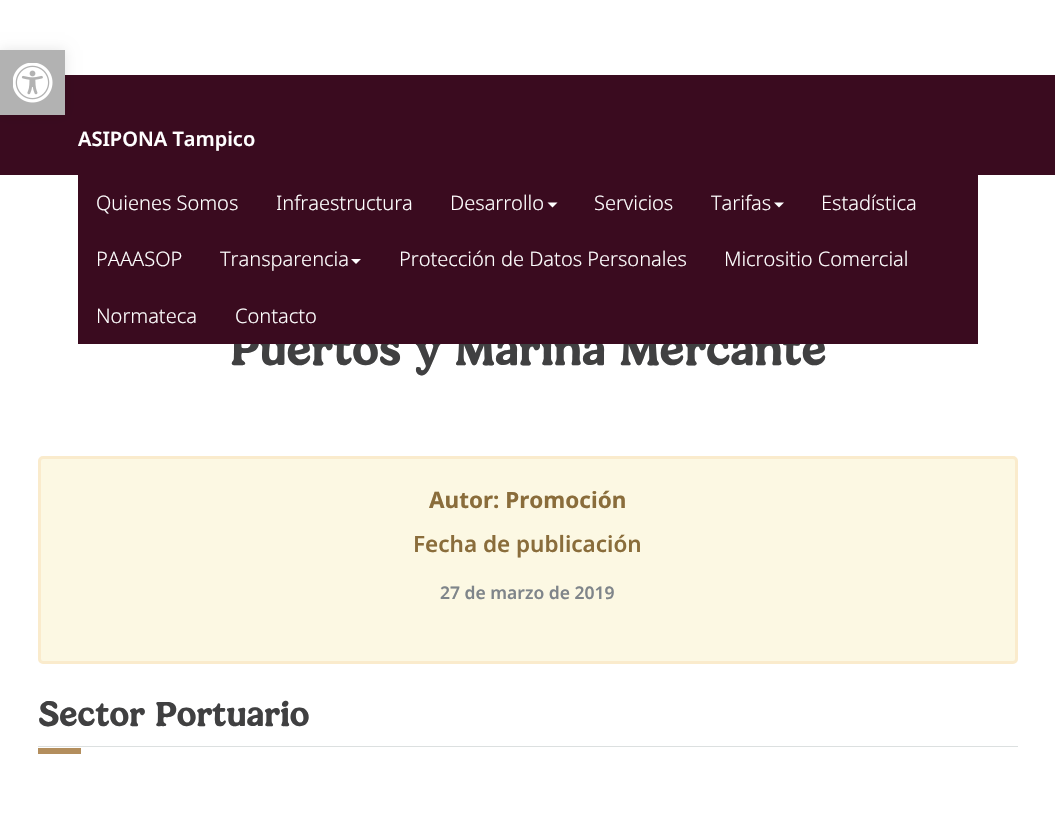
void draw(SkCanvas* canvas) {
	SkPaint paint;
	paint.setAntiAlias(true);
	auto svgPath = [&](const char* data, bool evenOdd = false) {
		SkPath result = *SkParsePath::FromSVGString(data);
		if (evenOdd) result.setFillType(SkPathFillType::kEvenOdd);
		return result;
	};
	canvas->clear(0xffffffff);
	paint.setColor(0xff3a0b1f);
	canvas->drawRect(SkRect::MakeXYWH(0, 75, 1055, 100), paint);
	paint.setColor(0x1a000000);
	paint.setMaskFilter(SkMaskFilter::MakeBlur(kNormal_SkBlurStyle, 6));
	canvas->drawRect(SkRect::MakeXYWH(0, 50, 65, 65), paint);
	paint.setMaskFilter(nullptr);
	paint.setColor(0xffb2b2b2);
	canvas->drawRect(SkRect::MakeXYWH(0, 50, 65, 65), paint);
	canvas->drawImageRect(SkImages::DeferredFromEncodedData(SkData::MakeFromFileName("img1.png")), SkRect::MakeXYWH(13, 63, 40, 40), SkSamplingOptions());
	SkFont f1(fontMgr->matchFamilyStyle("Noto Sans", SkFontStyle(600, SkFontStyle::kNormal_Width, SkFontStyle::kUpright_Slant)), 20);
	f1.setSubpixel(true);
	paint.setColor(0xffffffff);
	canvas->drawString("ASIPONA Tampico", 78, 146, f1, paint);
	SkFont f2(fontMgr->matchFamilyStyle("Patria", SkFontStyle::Bold()), 47.5);
	f2.setSubpixel(true);
	paint.setColor(0xff404041);
	canvas->drawString("Puertos y Marina Mercante", 230, 365, f2, paint);
	paint.setColor(0xff3a0b1f);
	canvas->drawRect(SkRect::MakeXYWH(78, 175, 900, 169), paint);
	SkFont f3(fontMgr->matchFamilyStyle("Noto Sans", SkFontStyle(300, SkFontStyle::kNormal_Width, SkFontStyle::kUpright_Slant)), 20);
	f3.setSubpixel(true);
	paint.setColor(0xffffffff);
	canvas->drawString("Quienes Somos", 96, 210, f3, paint);
	canvas->drawString("Infraestructura", 276, 210, f3, paint);
	canvas->drawString("Desarrollo", 450, 210, f3, paint);
	canvas->drawPath(svgPath("M547.5 202.5H557.5L552.5 207.5Z"), paint);
	canvas->drawString("Servicios", 594, 210, f3, paint);
	canvas->drawString("Tarifas", 711, 210, f3, paint);
	canvas->drawPath(svgPath("M774 202.5H784L779 207.5Z"), paint);
	canvas->drawString("Estadística", 821, 210, f3, paint);
	canvas->drawString("PAAASOP", 96, 266, f3, paint);
	canvas->drawString("Transparencia", 220, 266, f3, paint);
	canvas->drawPath(svgPath("M351 259H361L356 264Z"), paint);
	canvas->drawString("Protección de Datos Personales", 399, 266, f3, paint);
	canvas->drawString("Micrositio Comercial", 724, 266, f3, paint);
	canvas->drawString("Normateca", 96, 323, f3, paint);
	canvas->drawString("Contacto", 235, 323, f3, paint);
	paint.setColor(0xfffcf8e3);
	canvas->drawRoundRect(SkRect::MakeXYWH(39.5, 457.5, 977, 205), 3.5, 3.5, paint);
	paint.setStroke(true);
	paint.setStrokeWidth(3);
	paint.setColor(0xfffaebcc);
	canvas->drawRoundRect(SkRect::MakeXYWH(39.5, 457.5, 977, 205), 3.5, 3.5, paint);
	SkFont f4(fontMgr->matchFamilyStyle("Noto Sans", SkFontStyle::Bold()), 22.5);
	f4.setSubpixel(true);
	paint.setStroke(false);
	paint.setColor(0xff8a6d3b);
	canvas->drawString("Autor: Promoción", 429, 508, f4, paint);
	SkFont f5(fontMgr->matchFamilyStyle("Noto Sans", SkFontStyle(600, SkFontStyle::kNormal_Width, SkFontStyle::kUpright_Slant)), 22.5);
	f5.setSubpixel(true);
	canvas->drawString("Fecha de publicación", 413, 552, f5, paint);
	SkFont f6(fontMgr->matchFamilyStyle("Noto Sans", SkFontStyle(600, SkFontStyle::kNormal_Width, SkFontStyle::kUpright_Slant)), 17.5);
	f6.setSubpixel(true);
	paint.setColor(0xff7f858a);
	canvas->drawString("27 de marzo de 2019", 440, 599, f6, paint);
	SkFont f7(fontMgr->matchFamilyStyle("Patria", SkFontStyle::Bold()), 35);
	f7.setSubpixel(true);
	paint.setColor(0xff404041);
	canvas->drawString("Sector Portuario", 38, 726, f7, paint);
	paint.setColor(0xffdce0e0);
	canvas->drawRect(SkRect::MakeXYWH(38, 746, 980, 1), paint);
	paint.setColor(0xffb38e5d);
	canvas->drawRect(SkRect::MakeXYWH(38, 748, 43, 6), paint);
}
